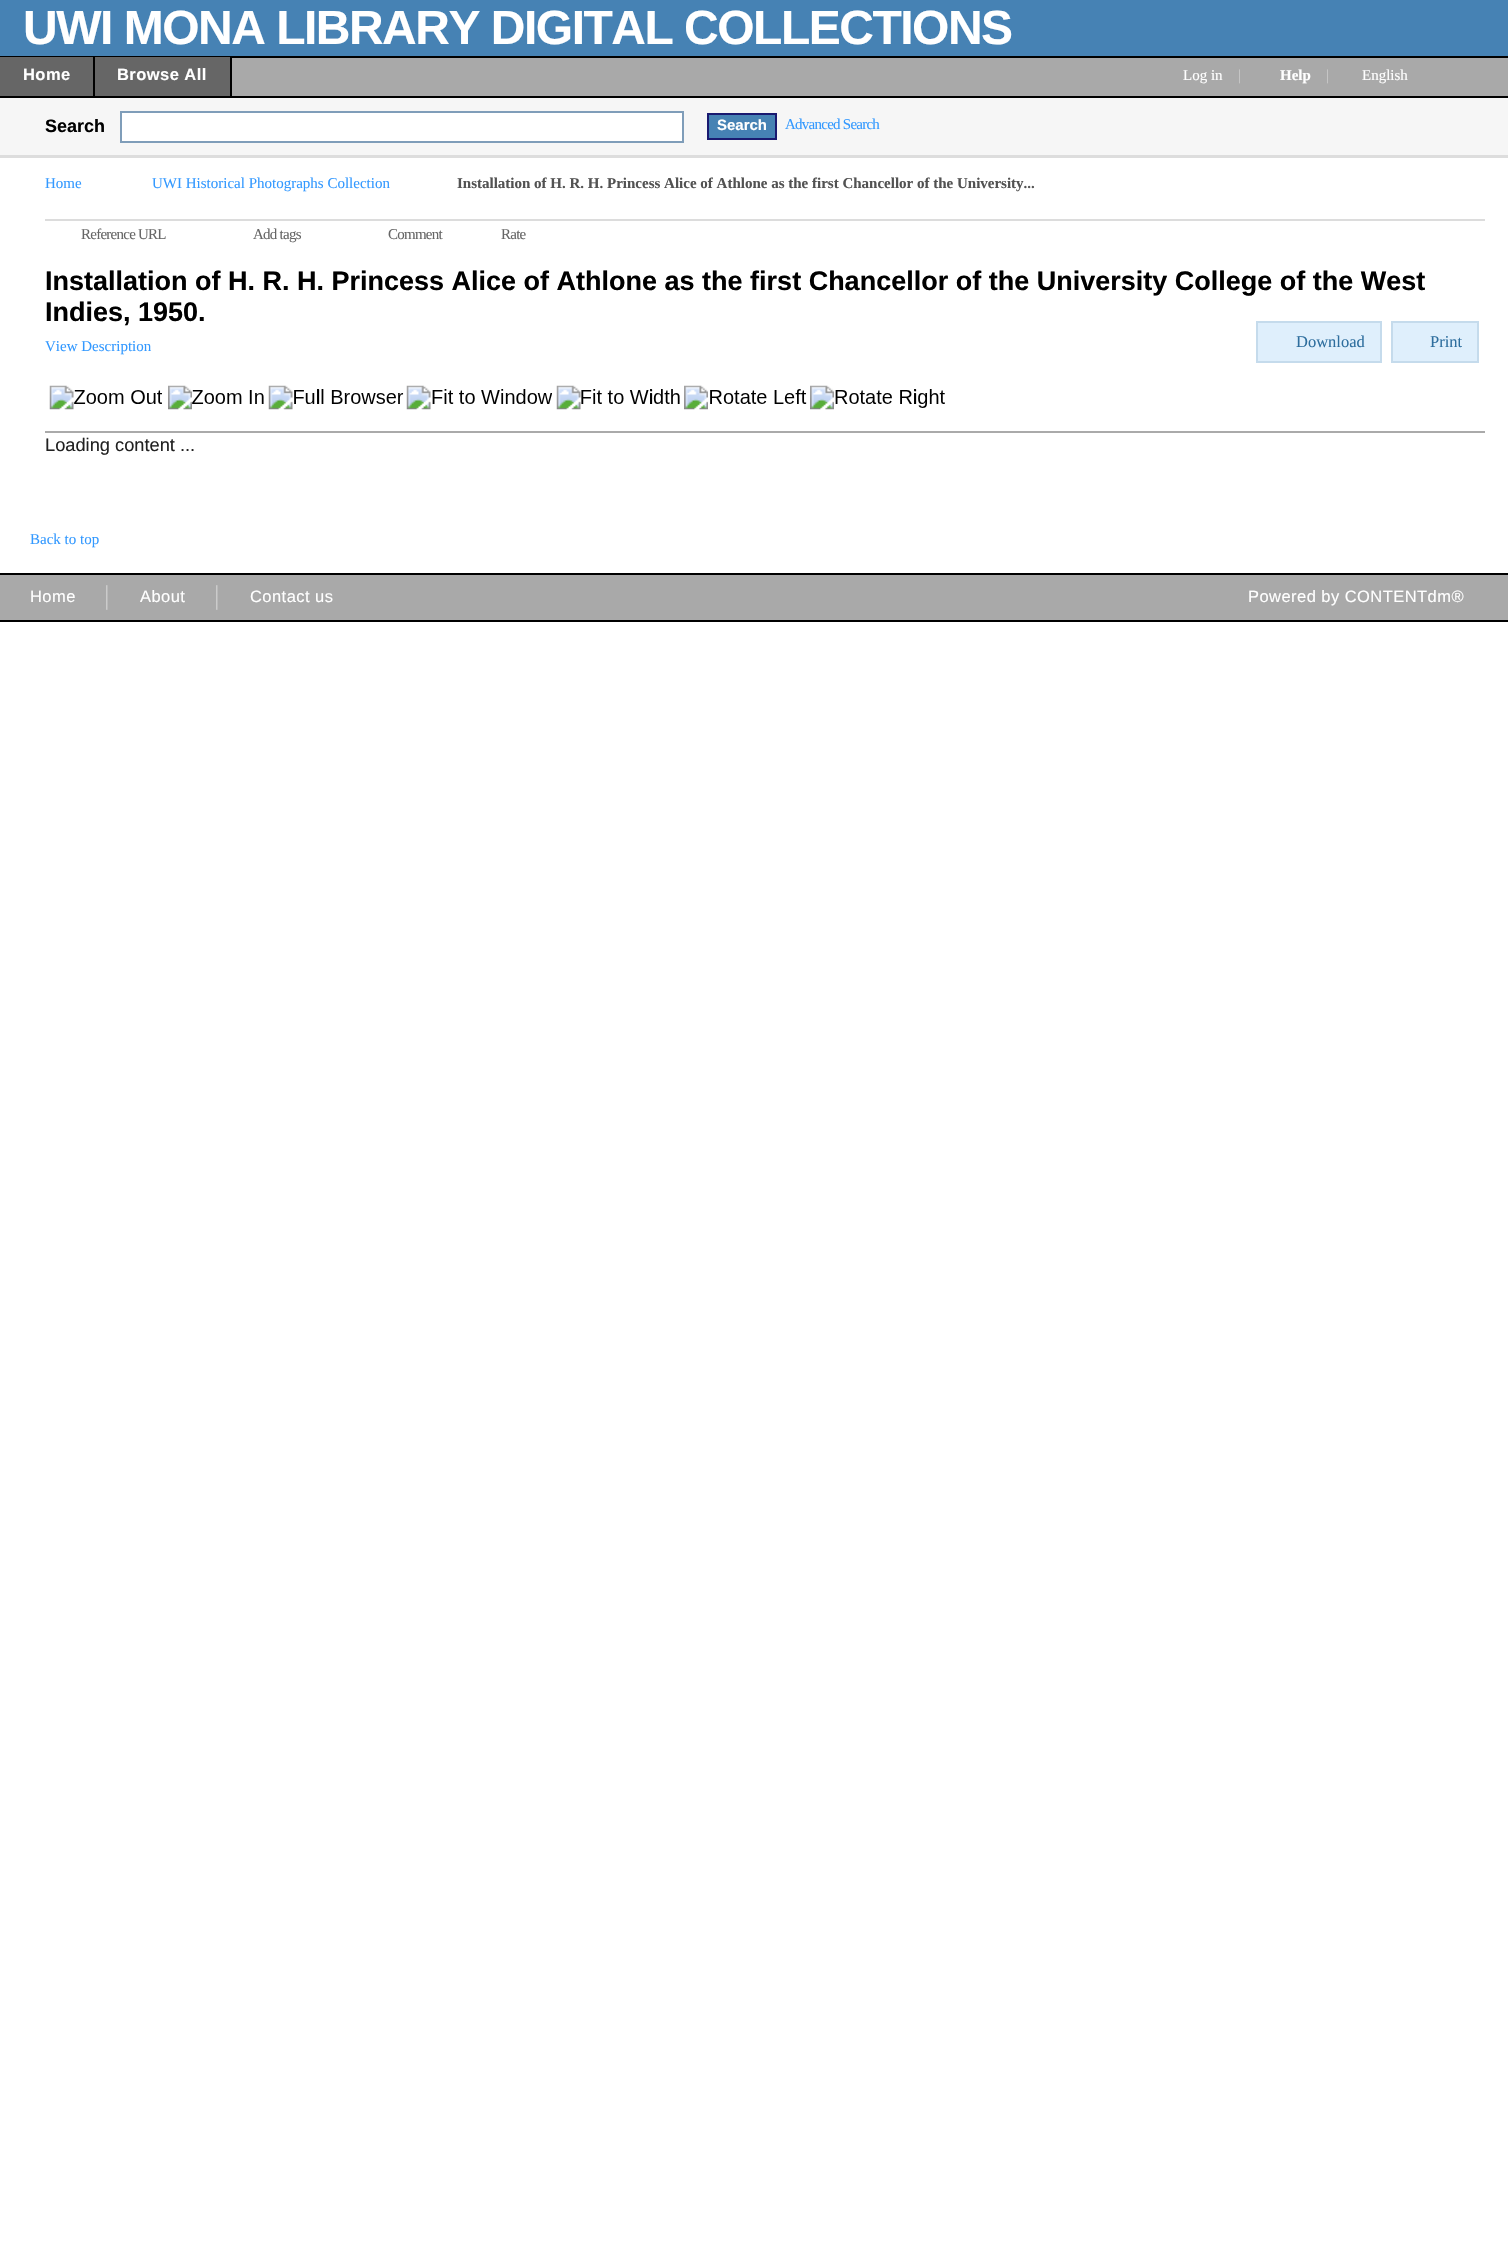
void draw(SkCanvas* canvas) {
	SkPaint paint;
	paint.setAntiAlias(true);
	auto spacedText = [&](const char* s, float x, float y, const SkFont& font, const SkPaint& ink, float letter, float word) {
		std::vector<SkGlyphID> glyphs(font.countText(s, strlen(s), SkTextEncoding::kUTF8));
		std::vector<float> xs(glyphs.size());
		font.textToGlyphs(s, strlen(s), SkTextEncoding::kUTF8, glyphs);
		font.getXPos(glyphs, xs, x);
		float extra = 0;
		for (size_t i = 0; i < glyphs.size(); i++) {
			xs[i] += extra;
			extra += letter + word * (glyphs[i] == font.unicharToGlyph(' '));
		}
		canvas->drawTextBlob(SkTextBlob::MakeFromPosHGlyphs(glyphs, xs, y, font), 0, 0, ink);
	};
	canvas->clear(0xffffffff);
	paint.setColor(0xff4682b4);
	canvas->drawRect(SkRect::MakeXYWH(0, 0, 1508, 56), paint);
	SkFont f1(fontMgr->matchFamilyStyle("Liberation Sans", SkFontStyle::Bold()), 48);
	f1.setSubpixel(true);
	paint.setColor(0xffffffff);
	spacedText("UWI MONA LIBRARY DIGITAL COLLECTIONS", 23, 44, f1, paint, -1.5, 0);
	paint.setColor(0xffa9a9a9);
	canvas->drawRect(SkRect::MakeXYWH(232, 58, 1276, 38), paint);
	paint.setColor(0xff000000);
	canvas->drawRect(SkRect::MakeXYWH(0, 56, 1508, 2), paint);
	canvas->drawRect(SkRect::MakeXYWH(0, 96, 1508, 2), paint);
	paint.setColor(0xff666666);
	canvas->drawRect(SkRect::MakeXYWH(0, 57, 93, 39), paint);
	paint.setColor(0xff000000);
	canvas->drawRect(SkRect::MakeXYWH(93, 57, 2, 39), paint);
	SkFont f2(fontMgr->matchFamilyStyle("Liberation Sans", SkFontStyle::Bold()), 16.5);
	f2.setSubpixel(true);
	paint.setColor(0xffffffff);
	spacedText("Home", 23, 80, f2, paint, 0.45, 0);
	paint.setColor(0xff666666);
	canvas->drawRect(SkRect::MakeXYWH(95, 57, 135, 39), paint);
	paint.setColor(0xff000000);
	canvas->drawRect(SkRect::MakeXYWH(230, 57, 2, 39), paint);
	paint.setColor(0xffffffff);
	spacedText("Browse All", 117, 80, f2, paint, 0.45, 0);
	SkFont f3(fontMgr->matchFamilyStyle("Liberation Serif", SkFontStyle::Normal()), 15);
	f3.setSubpixel(true);
	canvas->drawString("Log in", 1183, 80, f3, paint);
	paint.setColor(0xffcccccc);
	canvas->drawString("|", 1238, 80, f3, paint);
	SkFont f4(fontMgr->matchFamilyStyle("Liberation Serif", SkFontStyle::Bold()), 15);
	f4.setSubpixel(true);
	paint.setColor(0xffffffff);
	canvas->drawString("Help", 1280, 80, f4, paint);
	paint.setColor(0xffcccccc);
	canvas->drawString("|", 1326, 80, f3, paint);
	paint.setColor(0xffffffff);
	canvas->drawString("English", 1362, 80, f3, paint);
	paint.setColor(0xfff6f6f6);
	canvas->drawRect(SkRect::MakeXYWH(0, 98, 1508, 57), paint);
	paint.setColor(0xffdddddd);
	canvas->drawRect(SkRect::MakeXYWH(0, 155, 1508, 3), paint);
	SkFont f5(fontMgr->matchFamilyStyle("Liberation Sans", SkFontStyle::Bold()), 18);
	f5.setSubpixel(true);
	paint.setColor(0xff000000);
	canvas->drawString("Search", 45, 132, f5, paint);
	paint.setColor(0xffffffff);
	canvas->drawRect(SkRect::MakeXYWH(121, 112, 562, 30), paint);
	paint.setStroke(true);
	paint.setStrokeWidth(2);
	paint.setColor(0xff7f9db9);
	canvas->drawRect(SkRect::MakeXYWH(121, 112, 562, 30), paint);
	paint.setStroke(false);
	paint.setColor(0xff4682b4);
	canvas->drawRect(SkRect::MakeXYWH(708, 114, 68, 25), paint);
	paint.setStroke(true);
	paint.setColor(0xff191970);
	canvas->drawRect(SkRect::MakeXYWH(708, 114, 68, 25), paint);
	SkFont f6(fontMgr->matchFamilyStyle("Liberation Sans", SkFontStyle::Bold()), 15);
	f6.setSubpixel(true);
	paint.setStroke(false);
	paint.setColor(0xffffffff);
	canvas->drawString("Search", 717, 130, f6, paint);
	paint.setColor(0xff3399ff);
	spacedText("Advanced Search", 785, 129, f3, paint, -0.75, 0);
	canvas->drawString("Home", 45, 188, f3, paint);
	canvas->drawString("UWI Historical Photographs Collection", 152, 188, f3, paint);
	paint.setColor(0xff525252);
	canvas->drawString("Installation of H. R. H. Princess Alice of Athlone as the first Chancellor of the University...", 457, 188, f4, paint);
	paint.setColor(0xffdcdcdc);
	canvas->drawRect(SkRect::MakeXYWH(45, 219, 1440, 2), paint);
	paint.setColor(0xff666666);
	spacedText("Reference URL", 81, 239, f3, paint, -0.75, 0);
	spacedText("Add tags", 253, 239, f3, paint, -0.75, 0);
	spacedText("Comment", 388, 239, f3, paint, -0.75, 0);
	spacedText("Rate", 501, 239, f3, paint, -0.75, 0);
	SkFont f7(fontMgr->matchFamilyStyle("Liberation Sans", SkFontStyle::Bold()), 27);
	f7.setSubpixel(true);
	paint.setColor(0xff000000);
	canvas->drawString("Installation of H. R. H. Princess Alice of Athlone as the first Chancellor of the University College of the West", 45, 290, f7, paint);
	canvas->drawString("Indies, 1950.", 45, 321, f7, paint);
	paint.setColor(0xff3399ff);
	canvas->drawString("View Description", 45, 351, f3, paint);
	paint.setColor(0xffdfeffc);
	canvas->drawRect(SkRect::MakeXYWH(1257, 322, 124, 40), paint);
	paint.setStroke(true);
	paint.setColor(0xffc5dbec);
	canvas->drawRect(SkRect::MakeXYWH(1257, 322, 124, 40), paint);
	SkFont f8(fontMgr->matchFamilyStyle("Liberation Serif", SkFontStyle::Normal()), 16.5);
	f8.setSubpixel(true);
	paint.setStroke(false);
	paint.setColor(0xff2e6e9e);
	canvas->drawString("Download", 1296, 347, f8, paint);
	paint.setColor(0xffdfeffc);
	canvas->drawRect(SkRect::MakeXYWH(1392, 322, 86, 40), paint);
	paint.setStroke(true);
	paint.setColor(0xffc5dbec);
	canvas->drawRect(SkRect::MakeXYWH(1392, 322, 86, 40), paint);
	paint.setStroke(false);
	paint.setColor(0xff2e6e9e);
	canvas->drawString("Print", 1430, 347, f8, paint);
	paint.setColor(0xffaaaaaa);
	canvas->drawRect(SkRect::MakeXYWH(45, 431, 1440, 2), paint);
	canvas->drawImageRect(SkImages::DeferredFromEncodedData(SkData::MakeFromFileName("img1.png")), SkRect::MakeXYWH(49, 385, 113, 25), SkSamplingOptions());
	canvas->drawImageRect(SkImages::DeferredFromEncodedData(SkData::MakeFromFileName("img2.png")), SkRect::MakeXYWH(168, 385, 96, 25), SkSamplingOptions());
	canvas->drawImageRect(SkImages::DeferredFromEncodedData(SkData::MakeFromFileName("img3.png")), SkRect::MakeXYWH(268, 385, 136, 25), SkSamplingOptions());
	SkFont f9(fontMgr->matchFamilyStyle("Liberation Sans", SkFontStyle::Normal()), 20);
	f9.setSubpixel(true);
	paint.setColor(0xff000000);
	canvas->drawString("l", 316, 404, f9, paint);
	canvas->drawImageRect(SkImages::DeferredFromEncodedData(SkData::MakeFromFileName("img4.png")), SkRect::MakeXYWH(406, 385, 146, 25), SkSamplingOptions());
	canvas->drawImageRect(SkImages::DeferredFromEncodedData(SkData::MakeFromFileName("img5.png")), SkRect::MakeXYWH(556, 385, 124, 25), SkSamplingOptions());
	canvas->drawString("i", 649, 404, f9, paint);
	canvas->drawImageRect(SkImages::DeferredFromEncodedData(SkData::MakeFromFileName("img6.png")), SkRect::MakeXYWH(684, 385, 123, 25), SkSamplingOptions());
	canvas->drawImageRect(SkImages::DeferredFromEncodedData(SkData::MakeFromFileName("img7.png")), SkRect::MakeXYWH(810, 385, 135, 25), SkSamplingOptions());
	canvas->drawString("i", 913, 404, f9, paint);
	SkFont f10(fontMgr->matchFamilyStyle("Liberation Sans", SkFontStyle::Normal()), 18.25);
	f10.setSubpixel(true);
	paint.setColor(0xff222222);
	canvas->drawString("Loading content ...", 45, 451, f10, paint);
	paint.setColor(0xff3399ff);
	canvas->drawString("Back to top", 30, 544, f3, paint);
	paint.setColor(0xffa9a9a9);
	canvas->drawRect(SkRect::MakeXYWH(0, 575, 1508, 45), paint);
	paint.setColor(0xff000000);
	canvas->drawRect(SkRect::MakeXYWH(0, 573, 1508, 2), paint);
	canvas->drawRect(SkRect::MakeXYWH(0, 620, 1508, 2), paint);
	SkFont f11(fontMgr->matchFamilyStyle("Liberation Sans", SkFontStyle::Normal()), 16.5);
	f11.setSubpixel(true);
	paint.setColor(0xffffffff);
	spacedText("Home", 30, 602, f11, paint, 0.45, 0);
	SkFont f12(fontMgr->matchFamilyStyle("Liberation Serif", SkFontStyle::Normal()), 27);
	f12.setSubpixel(true);
	paint.setColor(0xffcccccc);
	canvas->drawString("|", 104, 604, f12, paint);
	paint.setColor(0xffffffff);
	spacedText("About", 140, 602, f11, paint, 0.45, 0);
	paint.setColor(0xffcccccc);
	canvas->drawString("|", 214, 604, f12, paint);
	paint.setColor(0xffffffff);
	spacedText("Contact us", 250, 602, f11, paint, 0.45, 0);
	spacedText("Powered by CONTENTdm®", 1248, 602, f11, paint, 0.45, 0);
}
